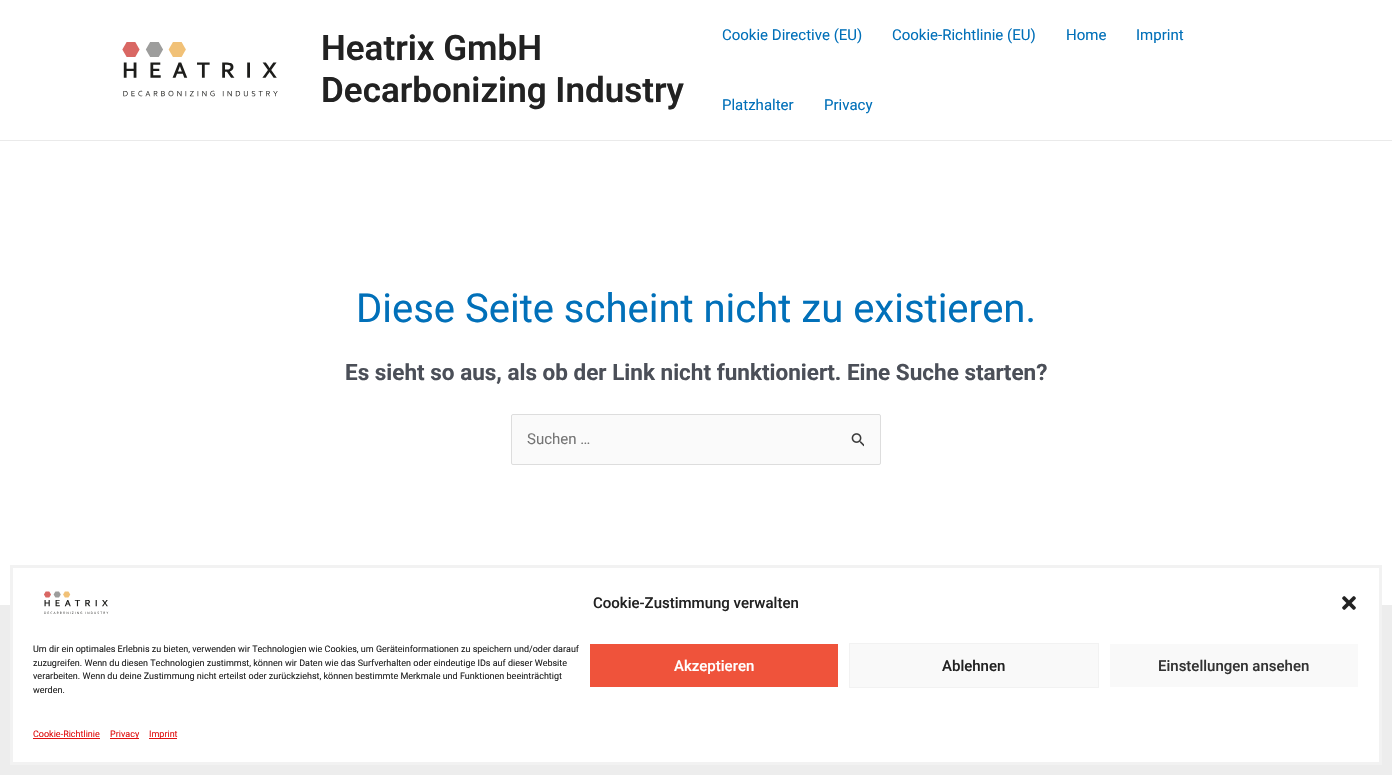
void draw(SkCanvas* canvas) {
	SkPaint paint;
	paint.setAntiAlias(true);
	canvas->clear(0xffffffff);
	paint.setColor(0xffeaeaea);
	canvas->drawRect(SkRect::MakeXYWH(0, 140, 1392, 1), paint);
	canvas->drawImageRect(SkImages::DeferredFromEncodedData(SkData::MakeFromFileName("img1.png")), SkRect::MakeXYWH(122, 42, 156, 55), SkSamplingOptions());
	SkFont f1(fontMgr->matchFamilyStyle("Roboto", SkFontStyle(600, SkFontStyle::kNormal_Width, SkFontStyle::kUpright_Slant)), 35);
	f1.setSubpixel(true);
	paint.setColor(0xff222222);
	canvas->drawString("Heatrix GmbH", 321, 60, f1, paint);
	canvas->drawString("Decarbonizing Industry", 321, 102, f1, paint);
	SkFont f2(fontMgr->matchFamilyStyle("Roboto", SkFontStyle::Normal()), 15);
	f2.setSubpixel(true);
	paint.setColor(0xff0170b9);
	canvas->drawString("Cookie Directive (EU)", 722, 40, f2, paint);
	canvas->drawString("Cookie-Richtlinie (EU)", 892, 40, f2, paint);
	canvas->drawString("Home", 1066, 40, f2, paint);
	canvas->drawString("Imprint", 1136, 40, f2, paint);
	canvas->drawString("Platzhalter", 722, 110, f2, paint);
	canvas->drawString("Privacy", 824, 110, f2, paint);
	SkFont f3(fontMgr->matchFamilyStyle("Roboto", SkFontStyle::Normal()), 40);
	f3.setSubpixel(true);
	canvas->drawString("Diese Seite scheint nicht zu existieren.", 356, 322, f3, paint);
	SkFont f4(fontMgr->matchFamilyStyle("Roboto", SkFontStyle::Bold()), 22.5);
	f4.setSubpixel(true);
	paint.setColor(0xff4b4f58);
	canvas->drawString("Es sieht so aus, als ob der Link nicht funktioniert. Eine Suche starten?", 345, 380, f4, paint);
	paint.setColor(0xfffafafa);
	canvas->drawRoundRect(SkRect::MakeXYWH(511.5, 414.5, 369, 50), 1.5, 1.5, paint);
	paint.setStroke(true);
	paint.setStrokeWidth(1);
	paint.setColor(0xffdddddd);
	canvas->drawRoundRect(SkRect::MakeXYWH(511.5, 414.5, 369, 50), 1.5, 1.5, paint);
	paint.setStroke(false);
	paint.setColor(0xff757575);
	canvas->drawString("Suchen …", 527, 444, f2, paint);
	canvas->drawImageRect(SkImages::DeferredFromEncodedData(SkData::MakeFromFileName("img2.png")), SkRect::MakeXYWH(851, 433, 13, 14), SkSamplingOptions());
	paint.setColor(0xffededed);
	canvas->drawRect(SkRect::MakeXYWH(0, 605, 1392, 170), paint);
	paint.setColor(0xffffffff);
	canvas->drawRect(SkRect::MakeXYWH(13, 605, 1366, 157), paint);
	paint.setStroke(true);
	paint.setStrokeWidth(3);
	paint.setColor(0xfff2f2f2);
	canvas->drawRect(SkRect::MakeXYWH(11.5, 566.5, 1369, 197), paint);
	canvas->drawImageRect(SkImages::DeferredFromEncodedData(SkData::MakeFromFileName("img3.png")), SkRect::MakeXYWH(44, 591, 65, 23), SkSamplingOptions());
	SkFont f5(fontMgr->matchFamilyStyle("Roboto", SkFontStyle(500, SkFontStyle::kNormal_Width, SkFontStyle::kUpright_Slant)), 15);
	f5.setSubpixel(true);
	paint.setStroke(false);
	paint.setColor(0xff222222);
	canvas->drawString("Cookie-Zustimmung verwalten", 593, 608, f5, paint);
	canvas->drawImageRect(SkImages::DeferredFromEncodedData(SkData::MakeFromFileName("img4.png")), SkRect::MakeXYWH(1342, 596, 14, 14), SkSamplingOptions());
	SkFont f6(fontMgr->matchFamilyStyle("Roboto", SkFontStyle::Normal()), 9);
	f6.setSubpixel(true);
	canvas->drawString("Um dir ein optimales Erlebnis zu bieten, verwenden wir Technologien wie Cookies, um Geräteinformationen zu speichern und/oder darauf", 33, 652, f6, paint);
	canvas->drawString("zuzugreifen. Wenn du diesen Technologien zustimmst, können wir Daten wie das Surfverhalten oder eindeutige IDs auf dieser Website", 33, 666, f6, paint);
	canvas->drawString("verarbeiten. Wenn du deine Zustimmung nicht erteilst oder zurückziehst, können bestimmte Merkmale und Funktionen beeinträchtigt", 33, 679, f6, paint);
	canvas->drawString("werden.", 33, 693, f6, paint);
	paint.setColor(0xffef533b);
	canvas->drawRect(SkRect::MakeXYWH(590, 644, 248, 43), paint);
	paint.setColor(0xffffffff);
	canvas->drawString("Akzeptieren", 674, 671, f5, paint);
	paint.setColor(0xfff9f9f9);
	canvas->drawRect(SkRect::MakeXYWH(849.5, 643.5, 249, 44), paint);
	paint.setStroke(true);
	paint.setStrokeWidth(1);
	paint.setColor(0xfff2f2f2);
	canvas->drawRect(SkRect::MakeXYWH(849.5, 643.5, 249, 44), paint);
	paint.setStroke(false);
	paint.setColor(0xff222222);
	canvas->drawString("Ablehnen", 942, 671, f5, paint);
	paint.setColor(0xfff9f9f9);
	canvas->drawRect(SkRect::MakeXYWH(1110, 644, 248, 43), paint);
	paint.setColor(0xff333333);
	canvas->drawString("Einstellungen ansehen", 1158, 671, f5, paint);
	paint.setColor(0xffe01111);
	canvas->drawString("Cookie-Richtlinie", 33, 737, f6, paint);
	canvas->drawRect(SkRect::MakeXYWH(33, 738, 67, 1), paint);
	canvas->drawRect(SkRect::MakeXYWH(110, 738, 29, 1), paint);
	canvas->drawString("Privacy", 110, 737, f6, paint);
	canvas->drawRect(SkRect::MakeXYWH(149, 738, 28, 1), paint);
	canvas->drawString("Imprint", 149, 737, f6, paint);
}
